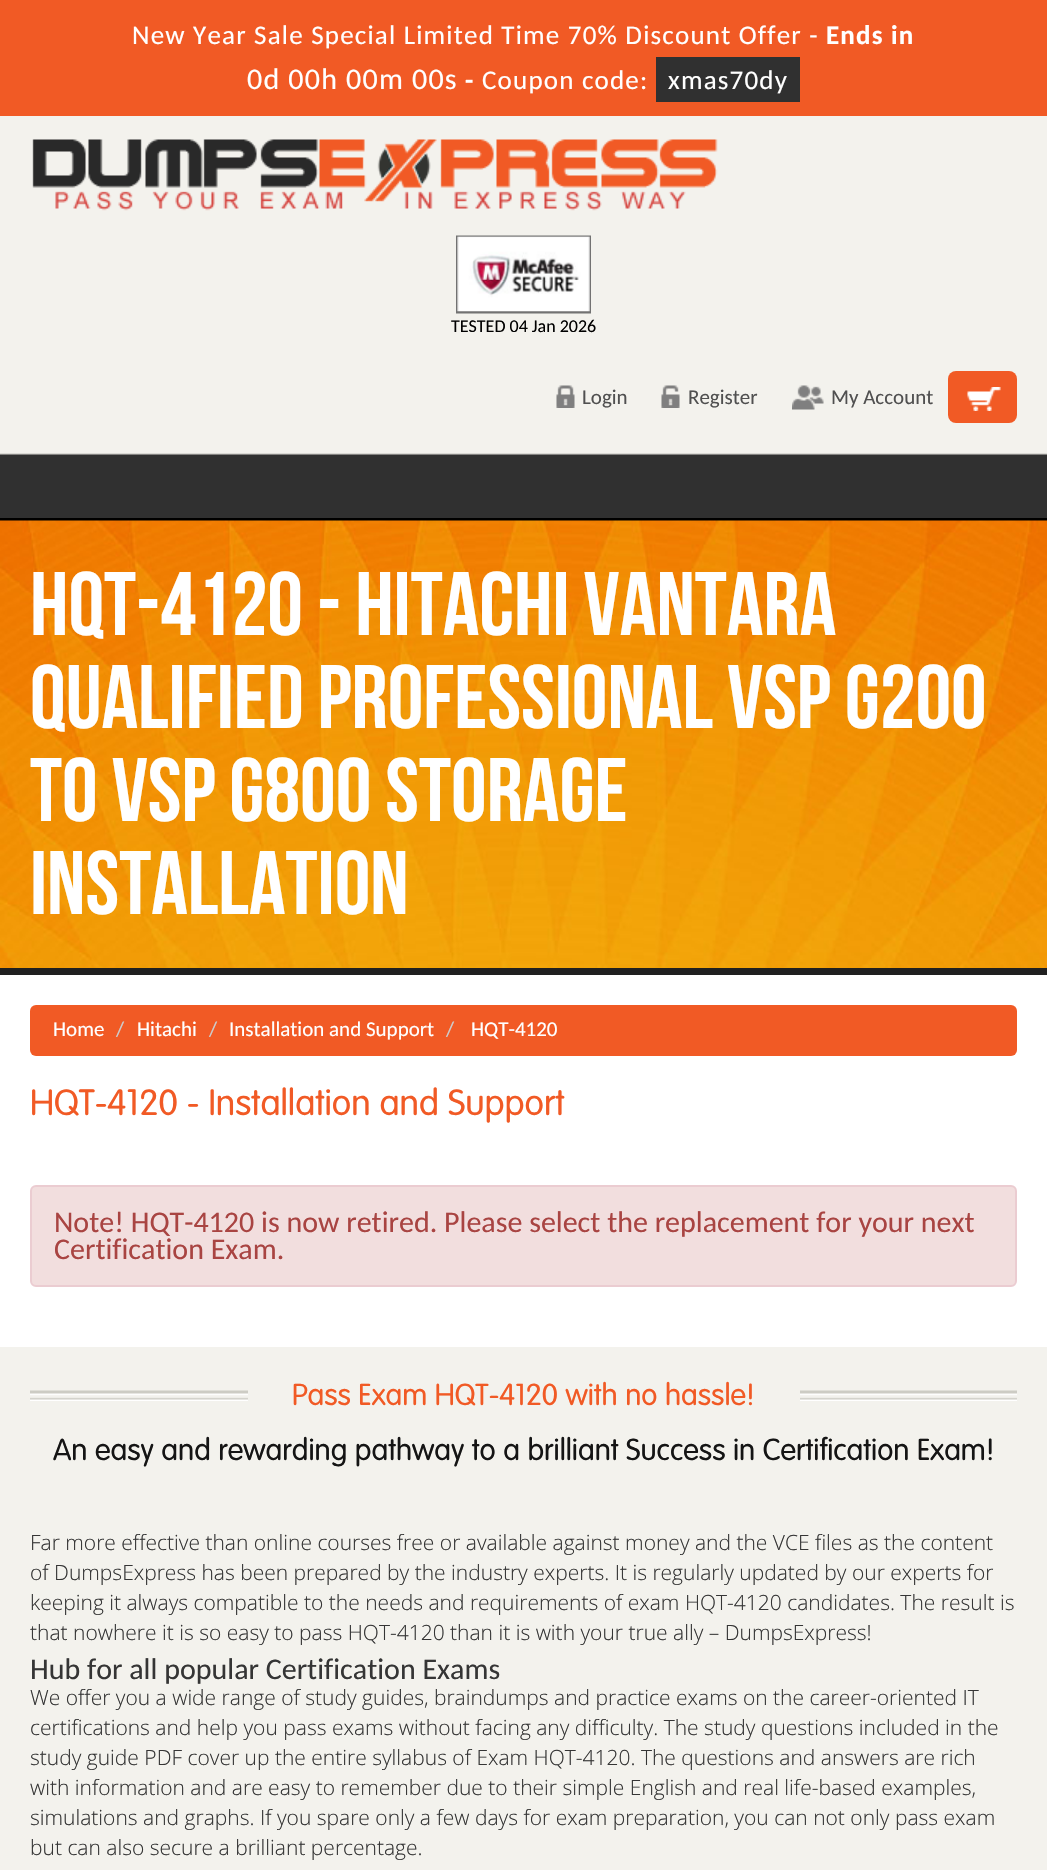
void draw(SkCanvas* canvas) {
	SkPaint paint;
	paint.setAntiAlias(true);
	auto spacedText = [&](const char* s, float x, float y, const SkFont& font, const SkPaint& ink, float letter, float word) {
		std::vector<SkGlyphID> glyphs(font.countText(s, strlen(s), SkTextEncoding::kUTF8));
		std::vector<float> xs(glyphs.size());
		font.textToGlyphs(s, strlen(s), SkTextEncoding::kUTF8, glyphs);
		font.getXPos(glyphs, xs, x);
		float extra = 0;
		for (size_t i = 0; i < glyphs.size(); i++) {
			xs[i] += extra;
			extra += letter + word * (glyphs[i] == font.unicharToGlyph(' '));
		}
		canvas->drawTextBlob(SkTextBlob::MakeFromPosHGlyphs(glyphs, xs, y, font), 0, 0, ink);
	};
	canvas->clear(0xfff3f2ed);
	paint.setColor(0xfff15a25);
	canvas->drawRect(SkRect::MakeXYWH(0, 0, 1047, 116), paint);
	SkFont f1(fontMgr->matchFamilyStyle("Carlito", SkFontStyle::Normal()), 27);
	f1.setSubpixel(true);
	paint.setColor(0xffffffff);
	spacedText("New Year Sale Special Limited Time 70% Discount Offer -", 132, 44, f1, paint, 1.2, 0);
	SkFont f2(fontMgr->matchFamilyStyle("Carlito", SkFontStyle::Bold()), 27);
	f2.setSubpixel(true);
	spacedText("Ends in", 826, 44, f2, paint, 1.2, 0);
	SkFont f3(fontMgr->matchFamilyStyle("Carlito", SkFontStyle::Normal()), 30);
	f3.setSubpixel(true);
	spacedText("0d 00h 00m 00s", 247, 89, f3, paint, 1.2, 0);
	spacedText("-", 465, 89, f2, paint, 1.2, 0);
	spacedText("Coupon code:", 482, 89, f1, paint, 1.2, 0);
	paint.setColor(0xff303030);
	canvas->drawRect(SkRect::MakeXYWH(656, 57, 144, 45), paint);
	paint.setColor(0xffffffff);
	spacedText("xmas70dy", 668, 89, f1, paint, 1.2, 0);
	paint.setColor(0xffdbdad5);
	canvas->drawRect(SkRect::MakeXYWH(0, 453, 1047, 1), paint);
	canvas->drawImageRect(SkImages::DeferredFromEncodedData(SkData::MakeFromFileName("img1.png")), SkRect::MakeXYWH(32, 139, 686, 72), SkSamplingOptions());
	canvas->drawImageRect(SkImages::DeferredFromEncodedData(SkData::MakeFromFileName("img2.png")), SkRect::MakeXYWH(456, 235, 135, 79), SkSamplingOptions());
	SkFont f4(fontMgr->matchFamilyStyle("Carlito", SkFontStyle::Normal()), 18);
	f4.setSubpixel(true);
	paint.setColor(0xff000000);
	canvas->drawString("TESTED 04 Jan 2026", 451, 332, f4, paint);
	canvas->drawImageRect(SkImages::DeferredFromEncodedData(SkData::MakeFromFileName("img3.png")), SkRect::MakeXYWH(556, 385, 19, 23), SkSamplingOptions());
	SkFont f5(fontMgr->matchFamilyStyle("Carlito", SkFontStyle::Normal()), 21);
	f5.setSubpixel(true);
	paint.setColor(0xff505050);
	canvas->drawString("Login", 582, 404, f5, paint);
	canvas->drawImageRect(SkImages::DeferredFromEncodedData(SkData::MakeFromFileName("img4.png")), SkRect::MakeXYWH(661, 385, 19, 23), SkSamplingOptions());
	canvas->drawString("Register", 688, 404, f5, paint);
	canvas->drawImageRect(SkImages::DeferredFromEncodedData(SkData::MakeFromFileName("img5.png")), SkRect::MakeXYWH(792, 385, 32, 25), SkSamplingOptions());
	canvas->drawString("My Account", 831, 404, f5, paint);
	paint.setColor(0xfff15a25);
	canvas->drawRoundRect(SkRect::MakeXYWH(948, 371, 69, 52), 8, 8, paint);
	canvas->drawImageRect(SkImages::DeferredFromEncodedData(SkData::MakeFromFileName("img6.png")), SkRect::MakeXYWH(967, 387, 34, 24), SkSamplingOptions());
	paint.setColor(0xff303030);
	canvas->drawRect(SkRect::MakeXYWH(0, 455, 1047, 63), paint);
	paint.setColor(0xff848381);
	canvas->drawRect(SkRect::MakeXYWH(0, 454, 1047, 1), paint);
	paint.setColor(0xff000000);
	canvas->drawRect(SkRect::MakeXYWH(0, 518, 1047, 3), paint);
	canvas->drawImageRect(SkImages::DeferredFromEncodedData(SkData::MakeFromFileName("img7.png")), SkRect::MakeXYWH(0, 520, 1047, 448), SkSamplingOptions());
	paint.setColor(0xff202020);
	canvas->drawRect(SkRect::MakeXYWH(0, 968, 1047, 7), paint);
	SkFont f6(fontMgr->matchFamilyStyle("Bebas Neue", SkFontStyle::Normal()), 90);
	f6.setSubpixel(true);
	paint.setColor(0xffffffff);
	canvas->drawString("HQT-4120 - Hitachi Vantara", 30, 635, f6, paint);
	canvas->drawString("Qualified Professional VSP G200", 30, 728, f6, paint);
	canvas->drawString("to VSP G800 Storage", 30, 821, f6, paint);
	canvas->drawString("Installation", 30, 914, f6, paint);
	canvas->drawRect(SkRect::MakeXYWH(0, 975, 1047, 372), paint);
	paint.setColor(0xfff15a25);
	canvas->drawRoundRect(SkRect::MakeXYWH(30, 1005, 987, 51), 6, 6, paint);
	paint.setColor(0xffffffff);
	canvas->drawString("Home", 53, 1036, f5, paint);
	paint.setColor(0xffcccccc);
	canvas->drawString("/", 116, 1036, f5, paint);
	paint.setColor(0xffffffff);
	canvas->drawString("Hitachi", 137, 1036, f5, paint);
	paint.setColor(0xffcccccc);
	canvas->drawString("/", 209, 1036, f5, paint);
	paint.setColor(0xffffffff);
	canvas->drawString("Installation and Support", 229, 1036, f5, paint);
	paint.setColor(0xffcccccc);
	canvas->drawString("/", 446, 1036, f5, paint);
	paint.setColor(0xffffffff);
	canvas->drawString("HQT-4120", 471, 1036, f5, paint);
	SkFont f7(fontMgr->matchFamilyStyle("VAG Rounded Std", SkFontStyle(300, SkFontStyle::kNormal_Width, SkFontStyle::kUpright_Slant)), 36);
	f7.setSubpixel(true);
	paint.setColor(0xfff15a25);
	canvas->drawString("HQT-4120 - Installation and Support", 30, 1115, f7, paint);
	paint.setColor(0xfff2dede);
	canvas->drawRoundRect(SkRect::MakeXYWH(31, 1186, 985, 100), 5, 5, paint);
	paint.setStroke(true);
	paint.setStrokeWidth(2);
	paint.setColor(0xffebccd1);
	canvas->drawRoundRect(SkRect::MakeXYWH(31, 1186, 985, 100), 5, 5, paint);
	paint.setStroke(false);
	paint.setColor(0xffa94442);
	canvas->drawString("Note! HQT-4120 is now retired. Please select the replacement for your next", 54, 1232, f3, paint);
	canvas->drawString("Certification Exam.", 54, 1259, f3, paint);
	canvas->drawImageRect(SkImages::DeferredFromEncodedData(SkData::MakeFromFileName("img8.png")), SkRect::MakeXYWH(30, 1390, 987, 11), SkSamplingOptions());
	paint.setColor(0xfff3f2ed);
	canvas->drawRect(SkRect::MakeXYWH(248, 1390, 552, 11), paint);
	SkFont f8(fontMgr->matchFamilyStyle("VAG Rounded Std", SkFontStyle(300, SkFontStyle::kNormal_Width, SkFontStyle::kUpright_Slant)), 30);
	f8.setSubpixel(true);
	paint.setColor(0xfff15a25);
	canvas->drawString("Pass Exam HQT-4120 with no hassle!", 292, 1405, f8, paint);
	paint.setColor(0xff151515);
	canvas->drawString("An easy and rewarding pathway to a brilliant Success in Certification Exam!", 53, 1460, f8, paint);
	SkFont f9(fontMgr->matchFamilyStyle("Open Sans", SkFontStyle(300, SkFontStyle::kNormal_Width, SkFontStyle::kUpright_Slant)), 21);
	f9.setSubpixel(true);
	paint.setColor(0xff353535);
	canvas->drawString("Far more effective than online courses free or available against money and the VCE files as the content", 30, 1550, f9, paint);
	canvas->drawString("of DumpsExpress has been prepared by the industry experts. It is regularly updated by our experts for", 30, 1580, f9, paint);
	canvas->drawString("keeping it always compatible to the needs and requirements of exam HQT-4120 candidates. The result is", 30, 1610, f9, paint);
	canvas->drawString("that nowhere it is so easy to pass HQT-4120 than it is with your true ally – DumpsExpress!", 30, 1640, f9, paint);
	canvas->drawString("Hub for all popular Certification Exams", 30, 1679, f3, paint);
	canvas->drawString("We offer you a wide range of study guides, braindumps and practice exams on the career-oriented IT", 30, 1705, f9, paint);
	canvas->drawString("certifications and help you pass exams without facing any difficulty. The study questions included in the", 30, 1735, f9, paint);
	canvas->drawString("study guide PDF cover up the entire syllabus of Exam HQT-4120. The questions and answers are rich", 30, 1765, f9, paint);
	canvas->drawString("with information and are easy to remember due to their simple English and real life-based examples,", 30, 1795, f9, paint);
	canvas->drawString("simulations and graphs. If you spare only a few days for exam preparation, you can not only pass exam", 30, 1825, f9, paint);
	canvas->drawString("but can also secure a brilliant percentage.", 30, 1855, f9, paint);
}
